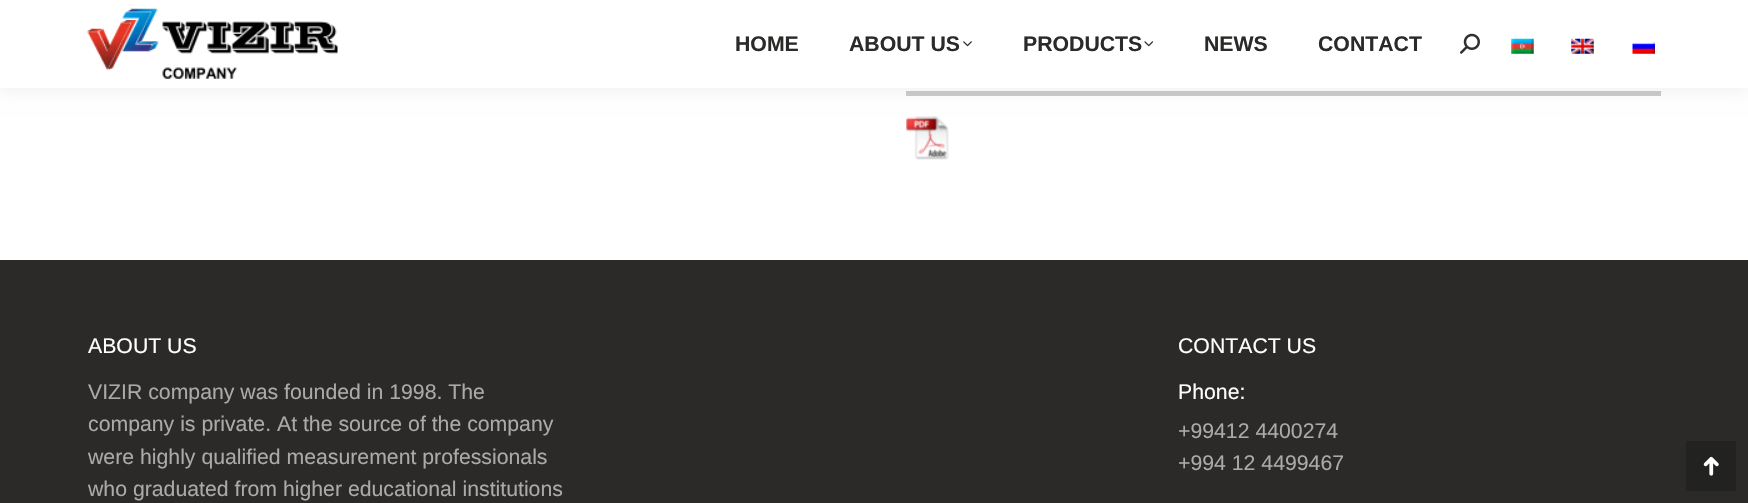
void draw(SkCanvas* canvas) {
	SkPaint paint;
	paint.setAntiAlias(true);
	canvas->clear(0xffffffff);
	paint.setColor(0xffcccccc);
	canvas->drawRect(SkRect::MakeXYWH(906, 91, 755, 4), paint);
	canvas->drawRect(SkRect::MakeXYWH(1658, 91, 3, 5), paint);
	canvas->drawRect(SkRect::MakeXYWH(906, 95, 755, 1), paint);
	canvas->drawImageRect(SkImages::DeferredFromEncodedData(SkData::MakeFromFileName("img8.png")), SkRect::MakeXYWH(906, 116, 43, 44), SkSamplingOptions());
	paint.setColor(0x12000000);
	paint.setMaskFilter(SkMaskFilter::MakeBlur(kNormal_SkBlurStyle, 9.5));
	canvas->drawRect(SkRect::MakeXYWH(-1, -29, 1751, 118), paint);
	paint.setMaskFilter(nullptr);
	paint.setColor(0xffffffff);
	canvas->drawRect(SkRect::MakeXYWH(0, 0, 1748, 88), paint);
	canvas->drawImageRect(SkImages::DeferredFromEncodedData(SkData::MakeFromFileName("img1.png")), SkRect::MakeXYWH(87, 8, 251, 71), SkSamplingOptions());
	SkFont f1(fontMgr->matchFamilyStyle("Liberation Sans", SkFontStyle::Bold()), 21.25);
	f1.setSubpixel(true);
	paint.setColor(0xff2b2a29);
	canvas->drawString("HOME", 735, 51, f1, paint);
	canvas->drawString("ABOUT US", 849, 51, f1, paint);
	canvas->drawImageRect(SkImages::DeferredFromEncodedData(SkData::MakeFromFileName("img2.png")), SkRect::MakeXYWH(963, 41, 9, 6), SkSamplingOptions());
	canvas->drawString("PRODUCTS", 1023, 51, f1, paint);
	canvas->drawImageRect(SkImages::DeferredFromEncodedData(SkData::MakeFromFileName("img3.png")), SkRect::MakeXYWH(1144, 41, 10, 6), SkSamplingOptions());
	canvas->drawString("NEWS", 1204, 51, f1, paint);
	canvas->drawString("CONTACT", 1318, 51, f1, paint);
	canvas->drawImageRect(SkImages::DeferredFromEncodedData(SkData::MakeFromFileName("img4.png")), SkRect::MakeXYWH(1460, 33, 20, 21), SkSamplingOptions());
	canvas->drawImageRect(SkImages::DeferredFromEncodedData(SkData::MakeFromFileName("img5.png")), SkRect::MakeXYWH(1511, 38, 23, 16), SkSamplingOptions());
	canvas->drawImageRect(SkImages::DeferredFromEncodedData(SkData::MakeFromFileName("img6.png")), SkRect::MakeXYWH(1571, 38, 23, 16), SkSamplingOptions());
	canvas->drawImageRect(SkImages::DeferredFromEncodedData(SkData::MakeFromFileName("img7.png")), SkRect::MakeXYWH(1632, 41, 23, 13), SkSamplingOptions());
	canvas->drawRect(SkRect::MakeXYWH(0, 260, 1748, 243), paint);
	SkFont f2(fontMgr->matchFamilyStyle("Liberation Sans", SkFontStyle::Normal()), 21.25);
	f2.setSubpixel(true);
	paint.setColor(0xffffffff);
	canvas->drawString("ABOUT US", 88, 353, f2, paint);
	paint.setColor(0xffaaaaaa);
	canvas->drawString("VIZIR company was founded in 1998. The", 88, 399, f2, paint);
	canvas->drawString("company is private. At the source of the company", 88, 431, f2, paint);
	canvas->drawString("were highly qualified measurement professionals", 88, 464, f2, paint);
	canvas->drawString("who graduated from higher educational institutions", 88, 496, f2, paint);
	paint.setColor(0xffffffff);
	canvas->drawString("CONTACT US", 1178, 353, f2, paint);
	canvas->drawString("Phone:", 1178, 399, f2, paint);
	paint.setColor(0xffaaaaaa);
	canvas->drawString("+99412 4400274", 1178, 438, f2, paint);
	canvas->drawString("+994 12 4499467", 1178, 470, f2, paint);
	paint.setColor(0xff222221);
	canvas->drawRect(SkRect::MakeXYWH(1686, 441, 50, 50), paint);
	canvas->drawImageRect(SkImages::DeferredFromEncodedData(SkData::MakeFromFileName("img9.png")), SkRect::MakeXYWH(1703, 456, 16, 20), SkSamplingOptions());
}
